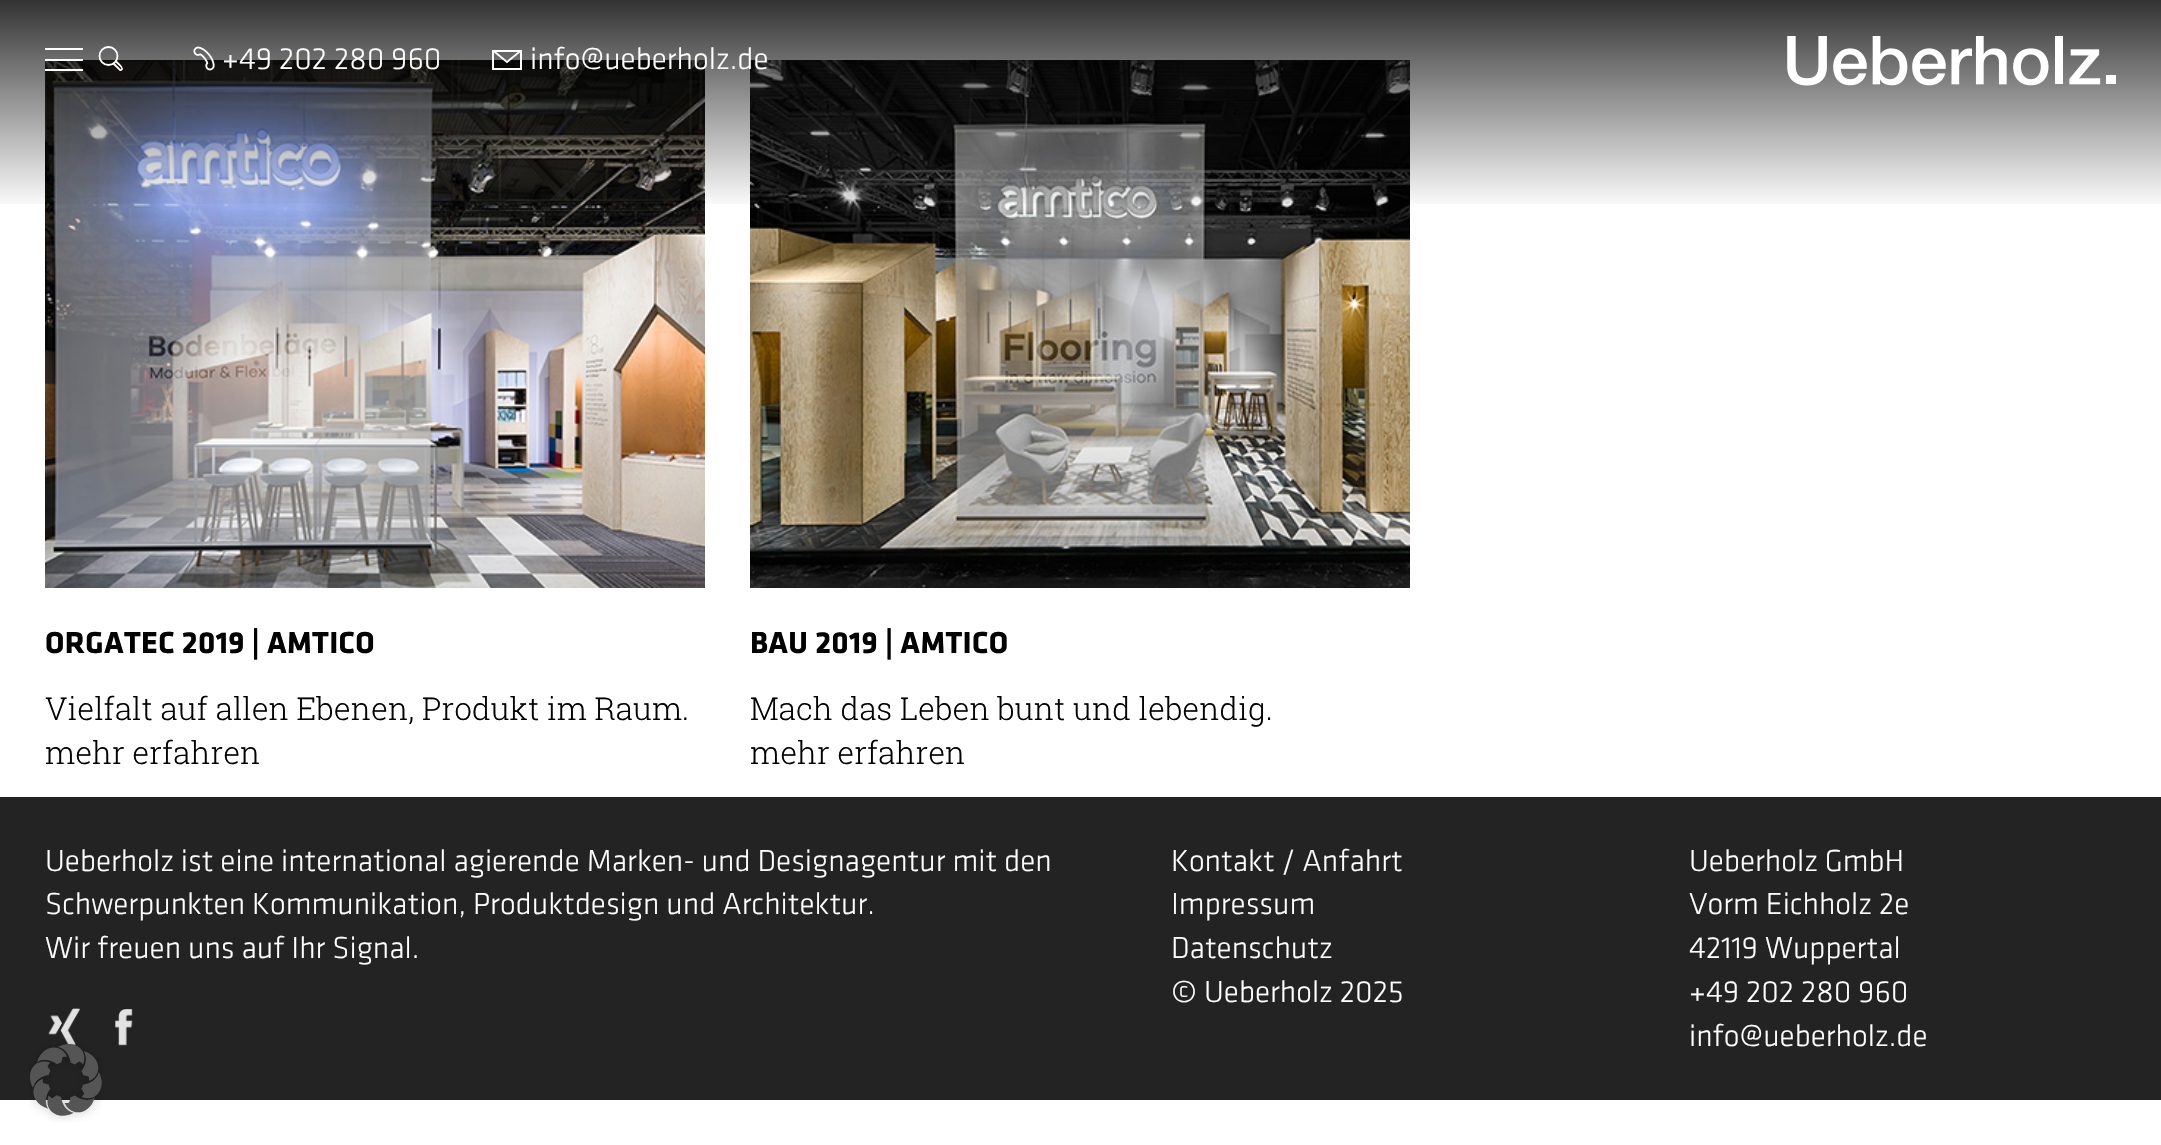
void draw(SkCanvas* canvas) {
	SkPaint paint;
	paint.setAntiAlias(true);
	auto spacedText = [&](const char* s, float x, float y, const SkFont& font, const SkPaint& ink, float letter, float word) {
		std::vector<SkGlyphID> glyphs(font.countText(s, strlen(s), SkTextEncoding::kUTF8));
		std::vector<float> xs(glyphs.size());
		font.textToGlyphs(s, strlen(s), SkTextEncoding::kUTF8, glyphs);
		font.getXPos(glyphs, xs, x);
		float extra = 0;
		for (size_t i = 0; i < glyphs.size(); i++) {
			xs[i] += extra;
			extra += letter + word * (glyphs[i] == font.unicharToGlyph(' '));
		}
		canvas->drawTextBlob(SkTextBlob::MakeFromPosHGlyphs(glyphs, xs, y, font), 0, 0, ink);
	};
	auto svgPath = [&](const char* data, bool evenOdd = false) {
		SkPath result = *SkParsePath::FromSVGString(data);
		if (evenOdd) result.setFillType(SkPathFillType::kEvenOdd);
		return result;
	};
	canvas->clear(0xffffffff);
	canvas->drawImageRect(SkImages::DeferredFromEncodedData(SkData::MakeFromFileName("img3.png")), SkRect::MakeXYWH(45, 60, 660, 528), SkSamplingOptions());
	canvas->drawImageRect(SkImages::DeferredFromEncodedData(SkData::MakeFromFileName("img4.png")), SkRect::MakeXYWH(750, 60, 660, 528), SkSamplingOptions());
	{
		const SkColor colors[] = {0xcc000000, 0x00000000};
		const float stops[] = {0, 1};
		const SkPoint ends[] = {{1081, 0}, {1081, 210}};
		paint.setShader(SkGradientShader::MakeLinear(ends, colors, stops, 2, SkTileMode::kClamp));
		paint.setAlpha(255);
	}
	canvas->drawRect(SkRect::MakeXYWH(0, 0, 2161, 204), paint);
	paint.setShader(nullptr);
	paint.setColor(0xffffffff);
	canvas->drawRect(SkRect::MakeXYWH(45, 59, 38, 2), paint);
	canvas->drawRect(SkRect::MakeXYWH(45, 48, 38, 2), paint);
	canvas->drawRect(SkRect::MakeXYWH(45, 69, 38, 2), paint);
	paint.setStroke(true);
	paint.setStrokeWidth(1.8);
	canvas->drawCircle(108.5, 56, 9, paint);
	canvas->drawPath(svgPath("M116 61.5C117 62.5 123 67.5 122 69C122 69.5 121 70.5 120 70L113.5 63.5"), paint);
	canvas->drawImageRect(SkImages::DeferredFromEncodedData(SkData::MakeFromFileName("img1.png")), SkRect::MakeXYWH(193, 46, 22, 25), SkSamplingOptions());
	SkFont f1(fontMgr->matchFamilyStyle("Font", SkFontStyle(300, SkFontStyle::kNormal_Width, SkFontStyle::kUpright_Slant)), 31.5);
	f1.setSubpixel(true);
	paint.setStroke(false);
	canvas->drawString("+49 202 280 960", 222, 69, f1, paint);
	paint.setStroke(true);
	paint.setStrokeWidth(2);
	canvas->drawRect(SkRect::MakeXYWH(493, 51, 28, 18), paint);
	paint.setStrokeWidth(1.8);
	canvas->drawPath(svgPath("M493 50.5L507 62L521 50.5"), paint);
	paint.setStroke(false);
	canvas->drawString("info@ueberholz.de", 530, 69, f1, paint);
	canvas->drawImageRect(SkImages::DeferredFromEncodedData(SkData::MakeFromFileName("img2.png")), SkRect::MakeXYWH(1787, 36, 329, 50), SkSamplingOptions());
	SkFont f2(fontMgr->matchFamilyStyle("Font", SkFontStyle::Bold()), 31.5);
	f2.setSubpixel(true);
	paint.setColor(0xff020202);
	spacedText("ORGATEC 2019 | AMTICO", 45, 653, f2, paint, 0.3, 0);
	SkFont f3(fontMgr->matchFamilyStyle("Roboto Slab", SkFontStyle(300, SkFontStyle::kNormal_Width, SkFontStyle::kUpright_Slant)), 31.5);
	f3.setSubpixel(true);
	canvas->drawString("Vielfalt auf allen Ebenen, Produkt im Raum.", 45, 720, f3, paint);
	canvas->drawString("mehr erfahren", 45, 764, f3, paint);
	spacedText("BAU 2019 | AMTICO", 750, 653, f2, paint, 0.3, 0);
	canvas->drawString("Mach das Leben bunt und lebendig.", 750, 720, f3, paint);
	canvas->drawString("mehr erfahren", 750, 764, f3, paint);
	paint.setColor(0xff232323);
	canvas->drawRect(SkRect::MakeXYWH(0, 797, 2161, 303), paint);
	paint.setColor(0xffffffff);
	canvas->drawString("Ueberholz ist eine international agierende Marken- und Designagentur mit den", 45, 871, f1, paint);
	canvas->drawString("Schwerpunkten Kommunikation, Produktdesign und Architektur.", 45, 914, f1, paint);
	canvas->drawString("Wir freuen uns auf Ihr Signal.", 45, 958, f1, paint);
	canvas->drawImageRect(SkImages::DeferredFromEncodedData(SkData::MakeFromFileName("img5.png")), SkRect::MakeXYWH(48, 1008, 32, 37), SkSamplingOptions());
	canvas->drawImageRect(SkImages::DeferredFromEncodedData(SkData::MakeFromFileName("img6.png")), SkRect::MakeXYWH(115, 1009, 18, 37), SkSamplingOptions());
	canvas->drawString("Kontakt / Anfahrt", 1171, 871, f1, paint);
	canvas->drawString("Impressum", 1171, 914, f1, paint);
	canvas->drawString("Datenschutz", 1171, 958, f1, paint);
	canvas->drawString("© Ueberholz 2025", 1171, 1002, f1, paint);
	canvas->drawString("Ueberholz GmbH", 1689, 871, f1, paint);
	canvas->drawString("Vorm Eichholz 2e", 1689, 914, f1, paint);
	canvas->drawString("42119 Wuppertal", 1689, 958, f1, paint);
	canvas->drawString("+49 202 280 960", 1689, 1002, f1, paint);
	canvas->drawString("info@ueberholz.de", 1689, 1046, f1, paint);
	canvas->drawImageRect(SkImages::DeferredFromEncodedData(SkData::MakeFromFileName("img7.png")), SkRect::MakeXYWH(29, 1038, 73, 84), SkSamplingOptions());
}
